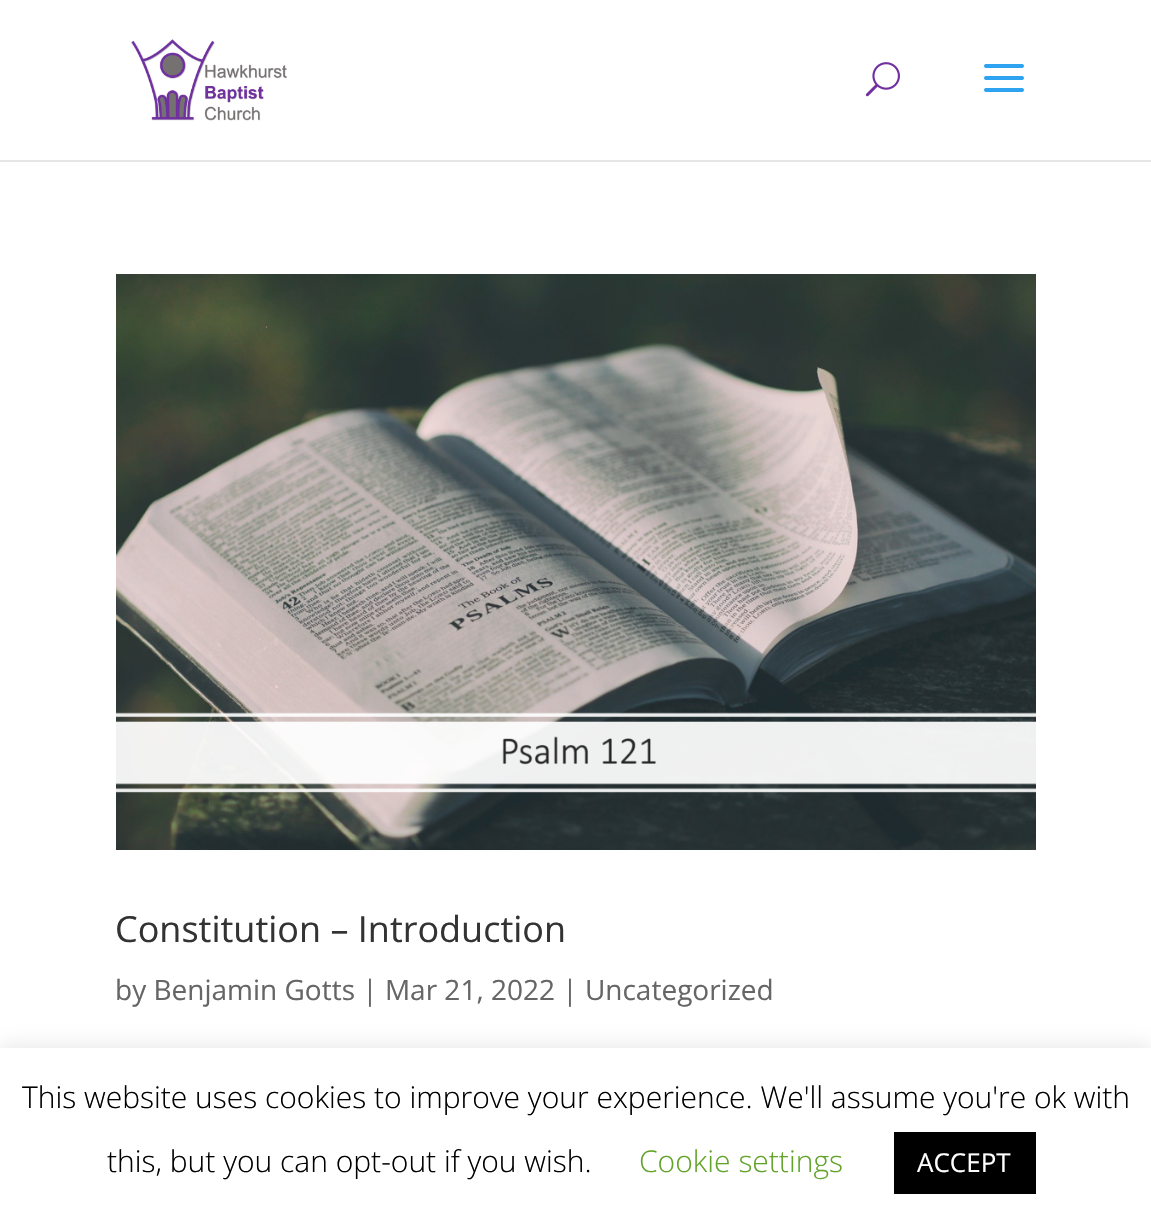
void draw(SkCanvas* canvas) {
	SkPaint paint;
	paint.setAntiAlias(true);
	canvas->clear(0xffffffff);
	paint.setColor(0xffe6e6e6);
	canvas->drawRect(SkRect::MakeXYWH(0, 160, 1151, 2), paint);
	canvas->drawImageRect(SkImages::DeferredFromEncodedData(SkData::MakeFromFileName("img1.png")), SkRect::MakeXYWH(131, 39, 156, 82), SkSamplingOptions());
	canvas->drawImageRect(SkImages::DeferredFromEncodedData(SkData::MakeFromFileName("img2.png")), SkRect::MakeXYWH(865, 62, 35, 35), SkSamplingOptions());
	canvas->drawImageRect(SkImages::DeferredFromEncodedData(SkData::MakeFromFileName("img3.png")), SkRect::MakeXYWH(984, 64, 40, 28), SkSamplingOptions());
	canvas->drawImageRect(SkImages::DeferredFromEncodedData(SkData::MakeFromFileName("img4.png")), SkRect::MakeXYWH(116, 274, 920, 576), SkSamplingOptions());
	SkFont f1(fontMgr->matchFamilyStyle("Open Sans", SkFontStyle::Normal()), 36);
	f1.setSubpixel(true);
	paint.setColor(0xff333333);
	canvas->drawString("Constitution – Introduction", 115, 942, f1, paint);
	SkFont f2(fontMgr->matchFamilyStyle("Open Sans", SkFontStyle::Normal()), 28);
	f2.setSubpixel(true);
	paint.setColor(0xff666666);
	canvas->drawString("by Benjamin Gotts | Mar 21, 2022 | Uncategorized", 115, 1000, f2, paint);
	paint.setColor(0x4dacabab);
	paint.setMaskFilter(SkMaskFilter::MakeBlur(kNormal_SkBlurStyle, 10));
	canvas->drawRect(SkRect::MakeXYWH(0, 1046, 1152, 180), paint);
	paint.setMaskFilter(nullptr);
	paint.setColor(0xffffffff);
	canvas->drawRect(SkRect::MakeXYWH(0, 1048, 1151, 180), paint);
	SkFont f3(fontMgr->matchFamilyStyle("Open Sans", SkFontStyle(300, SkFontStyle::kNormal_Width, SkFontStyle::kUpright_Slant)), 30);
	f3.setSubpixel(true);
	paint.setColor(0xff000000);
	canvas->drawString("This website uses cookies to improve your experience. We'll assume you're ok with", 22, 1108, f3, paint);
	canvas->drawString("this, but you can opt-out if you wish.", 107, 1172, f3, paint);
	paint.setColor(0xff62a329);
	canvas->drawString("Cookie settings", 639, 1172, f3, paint);
	paint.setColor(0xff000000);
	canvas->drawRect(SkRect::MakeXYWH(894, 1132, 142, 62), paint);
	SkFont f4(fontMgr->matchFamilyStyle("Open Sans", SkFontStyle::Normal()), 26);
	f4.setSubpixel(true);
	paint.setColor(0xffffffff);
	canvas->drawString("ACCEPT", 917, 1172, f4, paint);
}
